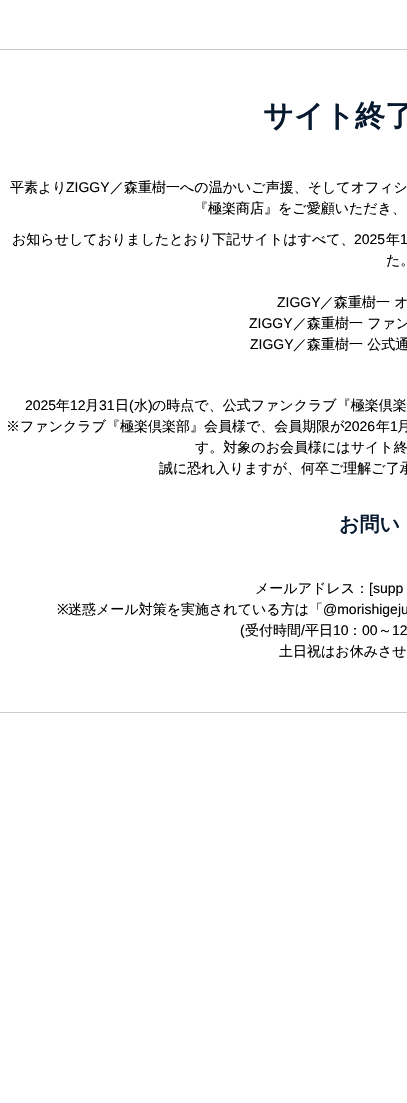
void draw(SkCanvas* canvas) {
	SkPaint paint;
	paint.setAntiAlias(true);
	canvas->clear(0xffffffff);
	paint.setColor(0xffcccccc);
	canvas->drawRect(SkRect::MakeXYWH(0, 49, 407, 1), paint);
	SkFont f1(fontMgr->matchFamilyStyle("WenQuanYi Zen Hei", SkFontStyle::Bold()), 30);
	f1.setSubpixel(true);
	paint.setColor(0xff06192f);
	canvas->drawString("サイト終了", 263, 126, f1, paint);
	SkFont f2(fontMgr->matchFamilyStyle("WenQuanYi Zen Hei", SkFontStyle(500, SkFontStyle::kNormal_Width, SkFontStyle::kUpright_Slant)), 14);
	f2.setSubpixel(true);
	paint.setColor(0xff000000);
	canvas->drawString("平素より", 10, 192, f2, paint);
	SkFont f3(fontMgr->matchFamilyStyle("Liberation Sans", SkFontStyle::Normal()), 14);
	f3.setSubpixel(true);
	canvas->drawString("ZIGGY", 66, 192, f3, paint);
	canvas->drawString("／森重樹一への温かいご声援、そしてオフィシ", 110, 192, f2, paint);
	canvas->drawString("『極楽商店』をご愛顧いただき、", 194, 213, f2, paint);
	canvas->drawString("お知らせしておりましたとおり下記サイトはすべて、", 12, 244, f2, paint);
	canvas->drawString("2025", 354, 244, f3, paint);
	canvas->drawString("年", 386, 244, f2, paint);
	canvas->drawString("1", 400, 244, f3, paint);
	canvas->drawString("た。", 386, 265, f2, paint);
	canvas->drawString("ZIGGY", 277, 307, f3, paint);
	canvas->drawString("／森重樹一 オ", 320, 307, f2, paint);
	canvas->drawString("ZIGGY", 249, 328, f3, paint);
	canvas->drawString("／森重樹一 ファン", 293, 328, f2, paint);
	canvas->drawString("ZIGGY", 250, 349, f3, paint);
	canvas->drawString("／森重樹一 公式通", 293, 349, f2, paint);
	canvas->drawString("2025", 25, 410, f3, paint);
	canvas->drawString("年", 56, 410, f2, paint);
	canvas->drawString("12", 70, 410, f3, paint);
	canvas->drawString("月", 85, 410, f2, paint);
	canvas->drawString("31", 99, 410, f3, paint);
	canvas->drawString("日", 115, 410, f2, paint);
	canvas->drawString("(", 129, 410, f3, paint);
	canvas->drawString("水", 134, 410, f2, paint);
	canvas->drawString(")", 148, 410, f3, paint);
	canvas->drawString("の時点で、公式ファンクラブ『極楽倶楽", 152, 410, f2, paint);
	canvas->drawString("※ファンクラブ『極楽倶楽部』会員様で、会員期限が", 6, 431, f2, paint);
	canvas->drawString("2026", 344, 431, f3, paint);
	canvas->drawString("年", 376, 431, f2, paint);
	canvas->drawString("1", 390, 431, f3, paint);
	canvas->drawString("月", 397, 431, f2, paint);
	canvas->drawString("す。対象のお会員様にはサイト終", 195, 452, f2, paint);
	canvas->drawString("誠に恐れ入りますが、何卒ご理解ご了承", 159, 473, f2, paint);
	SkFont f4(fontMgr->matchFamilyStyle("WenQuanYi Zen Hei", SkFontStyle::Bold()), 20);
	f4.setSubpixel(true);
	paint.setColor(0xff06192f);
	canvas->drawString("お問い", 339, 531, f4, paint);
	paint.setColor(0xff000000);
	canvas->drawString("メールアドレス：", 255, 593, f2, paint);
	canvas->drawString("[supp", 369, 593, f3, paint);
	SkFont f5(fontMgr->matchFamilyStyle("Noto Sans", SkFontStyle::Normal()), 14);
	f5.setSubpixel(true);
	canvas->drawString("※", 57, 614, f5, paint);
	canvas->drawString("迷惑メール対策を実施されている方は「", 68, 614, f2, paint);
	canvas->drawString("@morishigeju", 323, 614, f3, paint);
	canvas->drawString("(", 240, 635, f3, paint);
	canvas->drawString("受付時間", 245, 635, f2, paint);
	canvas->drawString("/", 301, 635, f3, paint);
	canvas->drawString("平日", 305, 635, f2, paint);
	canvas->drawString("10", 333, 635, f3, paint);
	canvas->drawString("：", 348, 635, f2, paint);
	canvas->drawString("00", 362, 635, f3, paint);
	canvas->drawString("～", 378, 635, f2, paint);
	canvas->drawString("12", 392, 635, f3, paint);
	canvas->drawString("土日祝はお休みさせ", 279, 656, f2, paint);
	paint.setColor(0xffcccccc);
	canvas->drawRect(SkRect::MakeXYWH(0, 712, 407, 1), paint);
}
